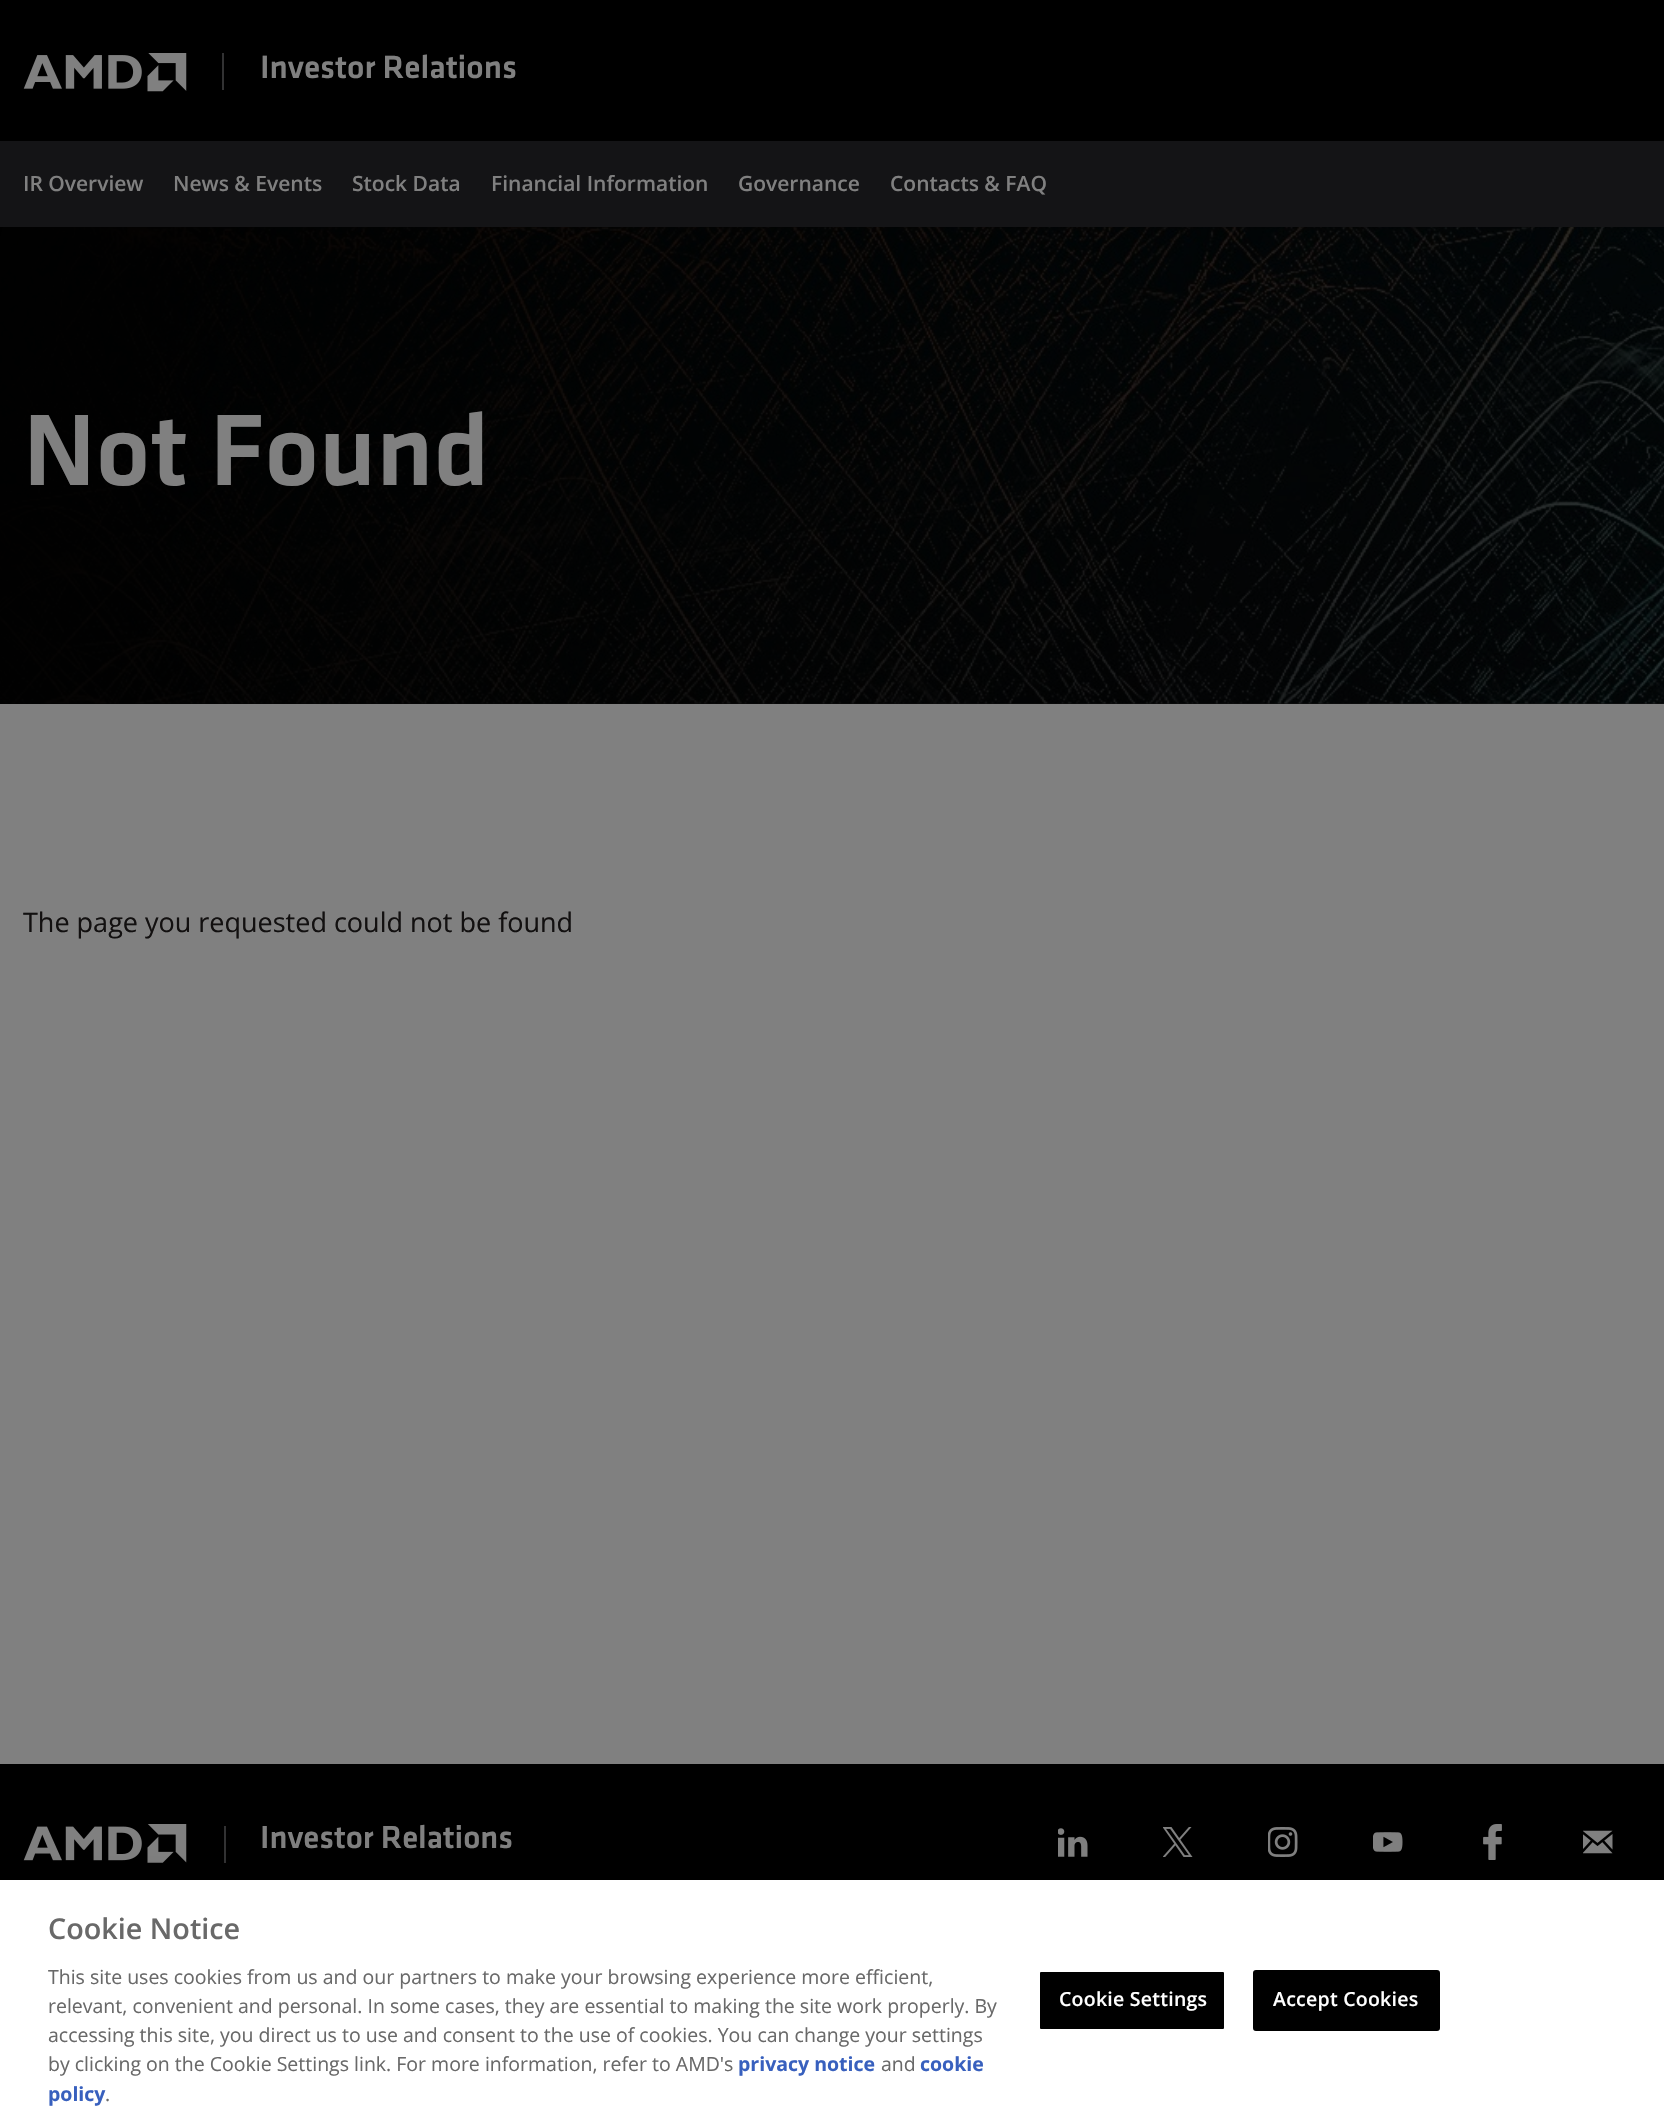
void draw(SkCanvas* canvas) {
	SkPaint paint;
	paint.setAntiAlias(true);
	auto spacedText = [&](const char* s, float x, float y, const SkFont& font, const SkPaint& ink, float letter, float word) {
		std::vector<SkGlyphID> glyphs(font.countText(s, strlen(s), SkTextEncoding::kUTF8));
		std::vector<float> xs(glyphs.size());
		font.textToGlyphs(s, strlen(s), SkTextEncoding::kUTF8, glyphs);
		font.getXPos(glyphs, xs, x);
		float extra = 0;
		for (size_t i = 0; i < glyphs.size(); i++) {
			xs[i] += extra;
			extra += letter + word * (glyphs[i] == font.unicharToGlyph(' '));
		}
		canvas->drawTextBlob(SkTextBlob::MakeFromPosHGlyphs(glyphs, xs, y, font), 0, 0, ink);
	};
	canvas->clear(0xff808080);
	paint.setColor(0xff1a1a1a);
	canvas->drawRect(SkRect::MakeXYWH(0, 703, 1664, 1), paint);
	canvas->drawImageRect(SkImages::DeferredFromEncodedData(SkData::MakeFromFileName("img2.png")), SkRect::MakeXYWH(0, 227, 1664, 477), SkSamplingOptions());
	{
		const SkColor colors[] = {0x4a000000, 0xff000000};
		const float stops[] = {0, 1};
		const SkPoint ends[] = {{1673, 669}, {-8, 250}};
		paint.setShader(SkGradientShader::MakeLinear(ends, colors, stops, 2, SkTileMode::kClamp));
		paint.setAlpha(255);
	}
	canvas->drawRect(SkRect::MakeXYWH(0, 227, 1664, 477), paint);
	paint.setShader(nullptr);
	paint.setColor(0x4d000000);
	paint.setMaskFilter(SkMaskFilter::MakeBlur(kNormal_SkBlurStyle, 4));
	canvas->drawRect(SkRect::MakeXYWH(0, 0, 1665, 227), paint);
	paint.setMaskFilter(nullptr);
	paint.setColor(0xff000000);
	canvas->drawRect(SkRect::MakeXYWH(0, 0, 1664, 141), paint);
	canvas->drawImageRect(SkImages::DeferredFromEncodedData(SkData::MakeFromFileName("img1.png")), SkRect::MakeXYWH(23, 53, 164, 39), SkSamplingOptions());
	paint.setColor(0xff323233);
	canvas->drawRect(SkRect::MakeXYWH(222, 53, 2, 37), paint);
	SkFont f1(fontMgr->matchFamilyStyle("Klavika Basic", SkFontStyle(500, SkFontStyle::kNormal_Width, SkFontStyle::kUpright_Slant)), 33.5);
	f1.setSubpixel(true);
	paint.setColor(0xff808080);
	canvas->drawString("Investor Relations", 260, 78, f1, paint);
	paint.setColor(0xff141416);
	canvas->drawRect(SkRect::MakeXYWH(0, 141, 1664, 86), paint);
	SkFont f2(fontMgr->matchFamilyStyle("Open Sans", SkFontStyle(600, SkFontStyle::kNormal_Width, SkFontStyle::kUpright_Slant)), 21);
	f2.setSubpixel(true);
	paint.setColor(0xff808080);
	canvas->drawString("IR Overview", 23, 191, f2, paint);
	canvas->drawString("News & Events", 173, 191, f2, paint);
	canvas->drawString("Stock Data", 352, 191, f2, paint);
	canvas->drawString("Financial Information", 491, 191, f2, paint);
	canvas->drawString("Governance", 738, 191, f2, paint);
	canvas->drawString("Contacts & FAQ", 890, 191, f2, paint);
	SkFont f3(fontMgr->matchFamilyStyle("Klavika Basic", SkFontStyle(500, SkFontStyle::kNormal_Width, SkFontStyle::kUpright_Slant)), 105);
	f3.setSubpixel(true);
	canvas->drawString("Not Found", 23, 485, f3, paint);
	SkFont f4(fontMgr->matchFamilyStyle("Open Sans", SkFontStyle::Normal()), 27);
	f4.setSubpixel(true);
	paint.setColor(0xff121010);
	canvas->drawString("The page you requested could not be found", 23, 932, f4, paint);
	paint.setColor(0xff000000);
	canvas->drawRect(SkRect::MakeXYWH(0, 1764, 1664, 116), paint);
	canvas->drawImageRect(SkImages::DeferredFromEncodedData(SkData::MakeFromFileName("img3.png")), SkRect::MakeXYWH(23, 1824, 164, 39), SkSamplingOptions());
	paint.setColor(0xff323233);
	canvas->drawRect(SkRect::MakeXYWH(224, 1826, 2, 37), paint);
	SkFont f5(fontMgr->matchFamilyStyle("Klavika Basic", SkFontStyle(500, SkFontStyle::kNormal_Width, SkFontStyle::kUpright_Slant)), 33);
	f5.setSubpixel(true);
	paint.setColor(0xff808080);
	canvas->drawString("Investor Relations", 260, 1848, f5, paint);
	canvas->drawImageRect(SkImages::DeferredFromEncodedData(SkData::MakeFromFileName("img4.png")), SkRect::MakeXYWH(1058, 1828, 30, 29), SkSamplingOptions());
	canvas->drawImageRect(SkImages::DeferredFromEncodedData(SkData::MakeFromFileName("img5.png")), SkRect::MakeXYWH(1163, 1827, 30, 30), SkSamplingOptions());
	canvas->drawImageRect(SkImages::DeferredFromEncodedData(SkData::MakeFromFileName("img6.png")), SkRect::MakeXYWH(1268, 1827, 30, 30), SkSamplingOptions());
	canvas->drawImageRect(SkImages::DeferredFromEncodedData(SkData::MakeFromFileName("img7.png")), SkRect::MakeXYWH(1373, 1832, 30, 20), SkSamplingOptions());
	canvas->drawImageRect(SkImages::DeferredFromEncodedData(SkData::MakeFromFileName("img8.png")), SkRect::MakeXYWH(1483, 1824, 19, 36), SkSamplingOptions());
	canvas->drawImageRect(SkImages::DeferredFromEncodedData(SkData::MakeFromFileName("img9.png")), SkRect::MakeXYWH(1583, 1830, 30, 24), SkSamplingOptions());
	paint.setColor(0x33000000);
	paint.setMaskFilter(SkMaskFilter::MakeBlur(kNormal_SkBlurStyle, 13.5));
	canvas->drawRect(SkRect::MakeXYWH(0, 1880, 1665, 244), paint);
	paint.setMaskFilter(nullptr);
	paint.setColor(0xffffffff);
	canvas->drawRect(SkRect::MakeXYWH(0, 1880, 1664, 243), paint);
	SkFont f6(fontMgr->matchFamilyStyle("Open Sans", SkFontStyle(600, SkFontStyle::kNormal_Width, SkFontStyle::kUpright_Slant)), 28.75);
	f6.setSubpixel(true);
	paint.setColor(0xff696969);
	canvas->drawString("Cookie Notice", 48, 1939, f6, paint);
	SkFont f7(fontMgr->matchFamilyStyle("Open Sans", SkFontStyle::Normal()), 19.5);
	f7.setSubpixel(true);
	canvas->drawString("This site uses cookies from us and our partners to make your browsing experience more efficient,", 48, 1984, f7, paint);
	canvas->drawString("relevant, convenient and personal. In some cases, they are essential to making the site work properly. By", 48, 2013, f7, paint);
	canvas->drawString("accessing this site, you direct us to use and consent to the use of cookies. You can change your settings", 48, 2042, f7, paint);
	canvas->drawString("by clicking on the Cookie Settings link. For more information, refer to AMD's", 48, 2071, f7, paint);
	SkFont f8(fontMgr->matchFamilyStyle("Open Sans", SkFontStyle::Bold()), 19.5);
	f8.setSubpixel(true);
	paint.setColor(0xff3860be);
	canvas->drawString("privacy notice", 738, 2071, f8, paint);
	paint.setColor(0xff696969);
	canvas->drawString("and", 881, 2071, f7, paint);
	paint.setColor(0xff3860be);
	canvas->drawString("cookie", 920, 2071, f8, paint);
	canvas->drawString("policy", 48, 2101, f8, paint);
	paint.setColor(0xff696969);
	canvas->drawString(".", 105, 2101, f7, paint);
	paint.setColor(0xff000000);
	canvas->drawRoundRect(SkRect::MakeXYWH(1039, 1971, 186, 59), 2, 2, paint);
	paint.setStroke(true);
	paint.setStrokeWidth(2);
	paint.setColor(0xffffffff);
	canvas->drawRoundRect(SkRect::MakeXYWH(1039, 1971, 186, 59), 2, 2, paint);
	SkFont f9(fontMgr->matchFamilyStyle("Open Sans", SkFontStyle(600, SkFontStyle::kNormal_Width, SkFontStyle::kUpright_Slant)), 19.5);
	f9.setSubpixel(true);
	paint.setStroke(false);
	spacedText("Cookie Settings", 1059, 2006, f9, paint, 0.25, 0);
	paint.setColor(0xff000000);
	canvas->drawRoundRect(SkRect::MakeXYWH(1254, 1971, 185, 59), 2, 2, paint);
	paint.setStroke(true);
	canvas->drawRoundRect(SkRect::MakeXYWH(1254, 1971, 185, 59), 2, 2, paint);
	paint.setStroke(false);
	paint.setColor(0xffffffff);
	spacedText("Accept Cookies", 1273, 2006, f9, paint, 0.25, 0);
}
